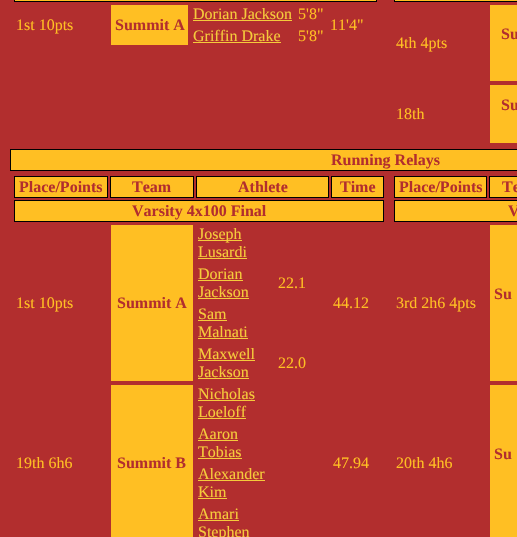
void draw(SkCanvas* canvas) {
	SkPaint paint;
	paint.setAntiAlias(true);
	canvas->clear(0xffb22e2e);
	paint.setColor(0xffffbf23);
	canvas->drawRect(SkRect::MakeXYWH(14.5, -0.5, 362, 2), paint);
	paint.setStroke(true);
	paint.setStrokeWidth(1);
	paint.setColor(0xff000000);
	canvas->drawRect(SkRect::MakeXYWH(14.5, -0.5, 362, 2), paint);
	SkFont f1(fontMgr->matchFamilyStyle("Liberation Serif", SkFontStyle::Normal()), 16);
	f1.setSubpixel(true);
	paint.setStroke(false);
	paint.setColor(0xfff5cb3b);
	canvas->drawString("Dorian Jackson", 193, 19, f1, paint);
	canvas->drawRect(SkRect::MakeXYWH(193, 20, 99, 1), paint);
	paint.setColor(0xffffbf23);
	canvas->drawString("5'8\"", 298, 19, f1, paint);
	canvas->drawString("1st 10pts", 16, 30, f1, paint);
	canvas->drawRect(SkRect::MakeXYWH(111, 5, 77, 40), paint);
	SkFont f2(fontMgr->matchFamilyStyle("Liberation Serif", SkFontStyle::Bold()), 16);
	f2.setSubpixel(true);
	paint.setColor(0xffb22e2e);
	canvas->drawString("Summit A", 115, 30, f2, paint);
	paint.setColor(0xffffbf23);
	canvas->drawString("11'4\"", 330, 30, f1, paint);
	paint.setColor(0xfff5cb3b);
	canvas->drawString("Griffin Drake", 193, 41, f1, paint);
	canvas->drawRect(SkRect::MakeXYWH(193, 42, 88, 1), paint);
	paint.setColor(0xffffbf23);
	canvas->drawString("5'8\"", 298, 41, f1, paint);
	canvas->drawRect(SkRect::MakeXYWH(394.5, -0.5, 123, 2), paint);
	paint.setStroke(true);
	paint.setColor(0xff000000);
	canvas->drawRect(SkRect::MakeXYWH(394.5, -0.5, 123, 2), paint);
	paint.setStroke(false);
	paint.setColor(0xffffbf23);
	canvas->drawRect(SkRect::MakeXYWH(490, 5, 27, 76), paint);
	paint.setColor(0xffb22e2e);
	canvas->drawString("Su", 501, 39, f2, paint);
	paint.setColor(0xffffbf23);
	canvas->drawString("4th 4pts", 396, 48, f1, paint);
	canvas->drawRect(SkRect::MakeXYWH(490, 85, 27, 58), paint);
	paint.setColor(0xffb22e2e);
	canvas->drawString("Su", 501, 110, f2, paint);
	paint.setColor(0xffffbf23);
	canvas->drawString("18th", 396, 119, f1, paint);
	canvas->drawRect(SkRect::MakeXYWH(10.5, 149.5, 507, 21), paint);
	paint.setStroke(true);
	paint.setColor(0xff000000);
	canvas->drawRect(SkRect::MakeXYWH(10.5, 149.5, 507, 21), paint);
	paint.setStroke(false);
	paint.setColor(0xffb22e2e);
	canvas->drawString("Running Relays", 331, 165, f2, paint);
	paint.setColor(0xffffbf23);
	canvas->drawRect(SkRect::MakeXYWH(14.5, 176.5, 93, 21), paint);
	paint.setStroke(true);
	paint.setColor(0xff000000);
	canvas->drawRect(SkRect::MakeXYWH(14.5, 176.5, 93, 21), paint);
	paint.setStroke(false);
	paint.setColor(0xffb22e2e);
	canvas->drawString("Place/Points", 19, 192, f2, paint);
	paint.setColor(0xffffbf23);
	canvas->drawRect(SkRect::MakeXYWH(110.5, 176.5, 83, 21), paint);
	paint.setStroke(true);
	paint.setColor(0xff000000);
	canvas->drawRect(SkRect::MakeXYWH(110.5, 176.5, 83, 21), paint);
	paint.setStroke(false);
	paint.setColor(0xffb22e2e);
	canvas->drawString("Team", 132, 192, f2, paint);
	paint.setColor(0xffffbf23);
	canvas->drawRect(SkRect::MakeXYWH(196.5, 176.5, 132, 21), paint);
	paint.setStroke(true);
	paint.setColor(0xff000000);
	canvas->drawRect(SkRect::MakeXYWH(196.5, 176.5, 132, 21), paint);
	paint.setStroke(false);
	paint.setColor(0xffb22e2e);
	canvas->drawString("Athlete", 238, 192, f2, paint);
	paint.setColor(0xffffbf23);
	canvas->drawRect(SkRect::MakeXYWH(331.5, 176.5, 52, 21), paint);
	paint.setStroke(true);
	paint.setColor(0xff000000);
	canvas->drawRect(SkRect::MakeXYWH(331.5, 176.5, 52, 21), paint);
	paint.setStroke(false);
	paint.setColor(0xffb22e2e);
	canvas->drawString("Time", 340, 192, f2, paint);
	paint.setColor(0xffffbf23);
	canvas->drawRect(SkRect::MakeXYWH(14.5, 200.5, 369, 21), paint);
	paint.setStroke(true);
	paint.setColor(0xff000000);
	canvas->drawRect(SkRect::MakeXYWH(14.5, 200.5, 369, 21), paint);
	paint.setStroke(false);
	paint.setColor(0xffb22e2e);
	canvas->drawString("Varsity 4x100 Final", 132, 216, f2, paint);
	paint.setColor(0xfff5cb3b);
	canvas->drawRect(SkRect::MakeXYWH(198, 240, 44, 1), paint);
	canvas->drawString("Joseph", 198, 239, f1, paint);
	canvas->drawString("Lusardi", 198, 257, f1, paint);
	canvas->drawRect(SkRect::MakeXYWH(198, 258, 49, 1), paint);
	paint.setColor(0xffffbf23);
	canvas->drawString("1st 10pts", 16, 308, f1, paint);
	canvas->drawRect(SkRect::MakeXYWH(111, 225, 82, 156), paint);
	paint.setColor(0xffb22e2e);
	canvas->drawString("Summit A", 117, 308, f2, paint);
	paint.setColor(0xffffbf23);
	canvas->drawString("44.12", 333, 308, f1, paint);
	paint.setColor(0xfff5cb3b);
	canvas->drawString("Dorian", 198, 279, f1, paint);
	canvas->drawRect(SkRect::MakeXYWH(198, 280, 45, 1), paint);
	canvas->drawString("Jackson", 198, 297, f1, paint);
	canvas->drawRect(SkRect::MakeXYWH(198, 298, 51, 1), paint);
	paint.setColor(0xffffbf23);
	canvas->drawString("22.1", 278, 288, f1, paint);
	paint.setColor(0xfff5cb3b);
	canvas->drawString("Sam", 198, 319, f1, paint);
	canvas->drawRect(SkRect::MakeXYWH(198, 320, 29, 1), paint);
	canvas->drawString("Malnati", 198, 337, f1, paint);
	canvas->drawRect(SkRect::MakeXYWH(198, 338, 50, 1), paint);
	canvas->drawString("Maxwell", 198, 359, f1, paint);
	canvas->drawRect(SkRect::MakeXYWH(198, 360, 57, 1), paint);
	canvas->drawString("Jackson", 198, 377, f1, paint);
	canvas->drawRect(SkRect::MakeXYWH(198, 378, 51, 1), paint);
	paint.setColor(0xffffbf23);
	canvas->drawString("22.0", 278, 368, f1, paint);
	paint.setColor(0xfff5cb3b);
	canvas->drawString("Nicholas", 198, 399, f1, paint);
	canvas->drawRect(SkRect::MakeXYWH(198, 400, 57, 1), paint);
	canvas->drawString("Loeloff", 198, 417, f1, paint);
	canvas->drawRect(SkRect::MakeXYWH(198, 418, 48, 1), paint);
	paint.setColor(0xffffbf23);
	canvas->drawString("19th 6h6", 16, 468, f1, paint);
	canvas->drawRect(SkRect::MakeXYWH(111, 385, 82, 152), paint);
	paint.setColor(0xffb22e2e);
	canvas->drawString("Summit B", 117, 468, f2, paint);
	paint.setColor(0xffffbf23);
	canvas->drawString("47.94", 333, 468, f1, paint);
	paint.setColor(0xfff5cb3b);
	canvas->drawString("Aaron", 198, 439, f1, paint);
	canvas->drawRect(SkRect::MakeXYWH(198, 440, 40, 1), paint);
	canvas->drawString("Tobias", 198, 457, f1, paint);
	canvas->drawRect(SkRect::MakeXYWH(198, 458, 44, 1), paint);
	canvas->drawString("Alexander", 198, 479, f1, paint);
	canvas->drawRect(SkRect::MakeXYWH(198, 480, 67, 1), paint);
	canvas->drawString("Kim", 198, 497, f1, paint);
	canvas->drawRect(SkRect::MakeXYWH(198, 498, 29, 1), paint);
	canvas->drawString("Amari", 198, 519, f1, paint);
	canvas->drawRect(SkRect::MakeXYWH(198, 520, 41, 1), paint);
	canvas->drawString("Stephen", 198, 537, f1, paint);
	paint.setColor(0xffffbf23);
	canvas->drawRect(SkRect::MakeXYWH(394.5, 176.5, 92, 21), paint);
	paint.setStroke(true);
	paint.setColor(0xff000000);
	canvas->drawRect(SkRect::MakeXYWH(394.5, 176.5, 92, 21), paint);
	paint.setStroke(false);
	paint.setColor(0xffb22e2e);
	canvas->drawString("Place/Points", 399, 192, f2, paint);
	paint.setColor(0xffffbf23);
	canvas->drawRect(SkRect::MakeXYWH(489.5, 176.5, 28, 21), paint);
	paint.setStroke(true);
	paint.setColor(0xff000000);
	canvas->drawRect(SkRect::MakeXYWH(489.5, 176.5, 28, 21), paint);
	paint.setStroke(false);
	paint.setColor(0xffb22e2e);
	canvas->drawString("Te", 502, 192, f2, paint);
	paint.setColor(0xffffbf23);
	canvas->drawRect(SkRect::MakeXYWH(394.5, 200.5, 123, 21), paint);
	paint.setStroke(true);
	paint.setColor(0xff000000);
	canvas->drawRect(SkRect::MakeXYWH(394.5, 200.5, 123, 21), paint);
	paint.setStroke(false);
	paint.setColor(0xffb22e2e);
	canvas->drawString("V", 508, 216, f2, paint);
	paint.setColor(0xffffbf23);
	canvas->drawRect(SkRect::MakeXYWH(490, 225, 27, 156), paint);
	paint.setColor(0xffb22e2e);
	canvas->drawString("Su", 494, 299, f2, paint);
	paint.setColor(0xffffbf23);
	canvas->drawString("3rd 2h6 4pts", 396, 308, f1, paint);
	canvas->drawRect(SkRect::MakeXYWH(490, 385, 27, 152), paint);
	paint.setColor(0xffb22e2e);
	canvas->drawString("Su", 494, 459, f2, paint);
	paint.setColor(0xffffbf23);
	canvas->drawString("20th 4h6", 396, 468, f1, paint);
}
